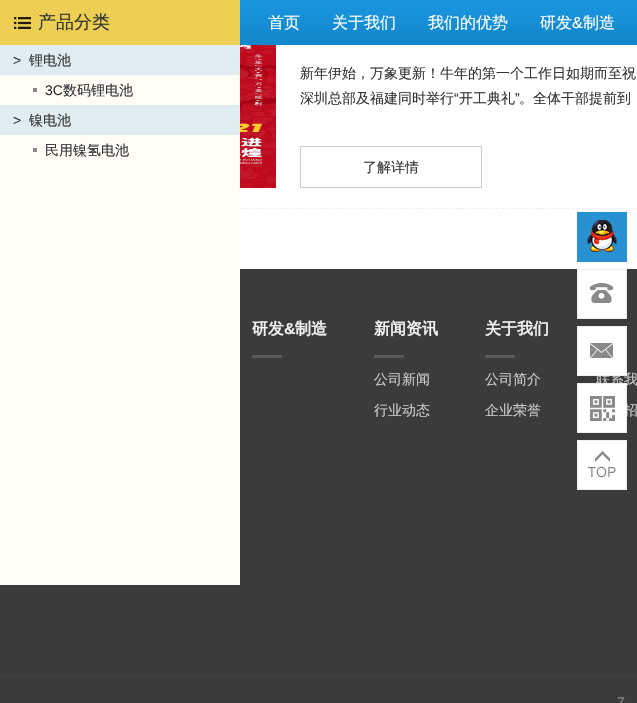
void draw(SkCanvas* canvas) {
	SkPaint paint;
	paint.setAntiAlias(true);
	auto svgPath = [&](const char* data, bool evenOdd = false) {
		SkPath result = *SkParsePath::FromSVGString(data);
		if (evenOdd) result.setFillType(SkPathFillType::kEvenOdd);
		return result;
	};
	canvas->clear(0xffffffff);
	canvas->drawImageRect(SkImages::DeferredFromEncodedData(SkData::MakeFromFileName("img1.png")), SkRect::MakeXYWH(240, 0, 397, 45), SkSamplingOptions());
	paint.setColor(0xffedcf53);
	canvas->drawRect(SkRect::MakeXYWH(0, 0, 240, 45), paint);
	canvas->drawImageRect(SkImages::DeferredFromEncodedData(SkData::MakeFromFileName("img2.png")), SkRect::MakeXYWH(13, 13, 20, 16), SkSamplingOptions());
	SkFont f1(fontMgr->matchFamilyStyle("WenQuanYi Zen Hei", SkFontStyle(500, SkFontStyle::kNormal_Width, SkFontStyle::kUpright_Slant)), 18);
	f1.setSubpixel(true);
	paint.setColor(0xff333333);
	canvas->drawString("产品分类", 38, 28, f1, paint);
	paint.setStroke(true);
	paint.setStrokeWidth(1);
	paint.setColor(0xffeeeeee);
	paint.setPathEffect(SkDashPathEffect::Make({{3, 2.01f}}, 0));
	canvas->drawPath(svgPath("M0 208.5H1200"), paint);
	paint.setPathEffect(nullptr);
	paint.setStroke(false);
	paint.setColor(0xff3b3b3b);
	canvas->drawRect(SkRect::MakeXYWH(0, 269, 637, 434), paint);
	paint.setColor(0xfffffdf6);
	canvas->drawRect(SkRect::MakeXYWH(0, 75, 240, 510), paint);
	paint.setColor(0xffdfedf0);
	canvas->drawRect(SkRect::MakeXYWH(0, 45, 240, 30), paint);
	SkFont f2(fontMgr->matchFamilyStyle("Liberation Sans", SkFontStyle::Normal()), 14);
	f2.setSubpixel(true);
	paint.setColor(0xff333333);
	canvas->drawString(">", 13, 65, f2, paint);
	SkFont f3(fontMgr->matchFamilyStyle("WenQuanYi Zen Hei", SkFontStyle(500, SkFontStyle::kNormal_Width, SkFontStyle::kUpright_Slant)), 14);
	f3.setSubpixel(true);
	canvas->drawString("锂电池", 29, 65, f3, paint);
	paint.setColor(0xff888888);
	canvas->drawRect(SkRect::MakeXYWH(33, 88, 4, 4), paint);
	paint.setColor(0xff333333);
	canvas->drawString("3C", 45, 95, f2, paint);
	canvas->drawString("数码锂电池", 63, 95, f3, paint);
	paint.setColor(0xffdfedf0);
	canvas->drawRect(SkRect::MakeXYWH(0, 105, 240, 30), paint);
	paint.setColor(0xff333333);
	canvas->drawString(">", 13, 125, f2, paint);
	canvas->drawString("镍电池", 29, 125, f3, paint);
	paint.setColor(0xff888888);
	canvas->drawRect(SkRect::MakeXYWH(33, 148, 4, 4), paint);
	paint.setColor(0xff333333);
	canvas->drawString("民用镍氢电池", 45, 155, f3, paint);
	SkFont f4(fontMgr->matchFamilyStyle("WenQuanYi Zen Hei", SkFontStyle(500, SkFontStyle::kNormal_Width, SkFontStyle::kUpright_Slant)), 16);
	f4.setSubpixel(true);
	paint.setColor(0xffffffff);
	canvas->drawString("首页", 268, 28, f4, paint);
	canvas->drawString("关于我们", 332, 28, f4, paint);
	canvas->drawString("我们的优势", 428, 28, f4, paint);
	canvas->drawString("研发", 540, 28, f4, paint);
	SkFont f5(fontMgr->matchFamilyStyle("Liberation Sans", SkFontStyle::Normal()), 16);
	f5.setSubpixel(true);
	canvas->drawString("&", 572, 28, f5, paint);
	canvas->drawString("制造", 583, 28, f4, paint);
	canvas->drawImageRect(SkImages::DeferredFromEncodedData(SkData::MakeFromFileName("img3.png")), SkRect::MakeXYWH(240, 45, 36, 143), SkSamplingOptions());
	paint.setColor(0xff333333);
	canvas->drawString("新年伊始，万象更新！牛年的第一个工作日如期而至祝", 300, 78, f3, paint);
	canvas->drawString("深圳总部及福建同时举行", 300, 103, f3, paint);
	canvas->drawString("“", 454, 103, f2, paint);
	canvas->drawString("开工典礼", 459, 103, f3, paint);
	canvas->drawString("”", 515, 103, f2, paint);
	canvas->drawString("。全体干部提前到", 519, 103, f3, paint);
	paint.setStroke(true);
	paint.setColor(0xffcccccc);
	canvas->drawRect(SkRect::MakeXYWH(300.5, 146.5, 181, 41), paint);
	paint.setStroke(false);
	paint.setColor(0xff333333);
	canvas->drawString("了解详情", 363, 172, f3, paint);
	paint.setColor(0xff2891d1);
	canvas->drawRect(SkRect::MakeXYWH(577, 212, 50, 50), paint);
	canvas->drawImageRect(SkImages::DeferredFromEncodedData(SkData::MakeFromFileName("img4.png")), SkRect::MakeXYWH(587, 220, 30, 32), SkSamplingOptions());
	paint.setColor(0xffffffff);
	canvas->drawRect(SkRect::MakeXYWH(578, 270, 48, 48), paint);
	canvas->drawImageRect(SkImages::DeferredFromEncodedData(SkData::MakeFromFileName("img5.png")), SkRect::MakeXYWH(590, 283, 23, 20), SkSamplingOptions());
	paint.setStroke(true);
	paint.setColor(0xffeeeeee);
	canvas->drawRect(SkRect::MakeXYWH(577.5, 269.5, 49, 49), paint);
	paint.setStroke(false);
	paint.setColor(0xffcccccc);
	canvas->drawString("联系我", 596, 384, f3, paint);
	paint.setColor(0xffffffff);
	canvas->drawRect(SkRect::MakeXYWH(578, 327, 48, 48), paint);
	canvas->drawImageRect(SkImages::DeferredFromEncodedData(SkData::MakeFromFileName("img6.png")), SkRect::MakeXYWH(590, 343, 23, 15), SkSamplingOptions());
	paint.setStroke(true);
	paint.setColor(0xffeeeeee);
	canvas->drawRect(SkRect::MakeXYWH(577.5, 326.5, 49, 49), paint);
	paint.setStroke(false);
	paint.setColor(0xffcccccc);
	canvas->drawString("招", 624, 415, f3, paint);
	paint.setColor(0xffffffff);
	canvas->drawRect(SkRect::MakeXYWH(578, 384, 48, 48), paint);
	canvas->drawImageRect(SkImages::DeferredFromEncodedData(SkData::MakeFromFileName("img7.png")), SkRect::MakeXYWH(590, 396, 25, 25), SkSamplingOptions());
	paint.setStroke(true);
	paint.setColor(0xffeeeeee);
	canvas->drawRect(SkRect::MakeXYWH(577.5, 383.5, 49, 49), paint);
	paint.setStroke(false);
	paint.setColor(0xffffffff);
	canvas->drawRect(SkRect::MakeXYWH(578, 441, 48, 48), paint);
	canvas->drawImageRect(SkImages::DeferredFromEncodedData(SkData::MakeFromFileName("img8.png")), SkRect::MakeXYWH(588, 451, 28, 27), SkSamplingOptions());
	paint.setStroke(true);
	paint.setColor(0xffeeeeee);
	canvas->drawRect(SkRect::MakeXYWH(577.5, 440.5, 49, 49), paint);
	SkFont f6(fontMgr->matchFamilyStyle("WenQuanYi Zen Hei", SkFontStyle::Bold()), 16);
	f6.setSubpixel(true);
	paint.setStroke(false);
	paint.setColor(0xfff1f1f1);
	canvas->drawString("研发", 252, 334, f6, paint);
	SkFont f7(fontMgr->matchFamilyStyle("Liberation Sans", SkFontStyle::Bold()), 16);
	f7.setSubpixel(true);
	canvas->drawString("&", 284, 334, f7, paint);
	canvas->drawString("制造", 295, 334, f6, paint);
	paint.setColor(0xff5a5a5a);
	canvas->drawRect(SkRect::MakeXYWH(252, 355, 30, 3), paint);
	paint.setColor(0xfff1f1f1);
	canvas->drawString("新闻资讯", 374, 334, f6, paint);
	paint.setColor(0xff5a5a5a);
	canvas->drawRect(SkRect::MakeXYWH(374, 355, 30, 3), paint);
	paint.setColor(0xffcccccc);
	canvas->drawString("公司新闻", 374, 384, f3, paint);
	canvas->drawString("行业动态", 374, 415, f3, paint);
	paint.setColor(0xfff1f1f1);
	canvas->drawString("关于我们", 485, 334, f6, paint);
	paint.setColor(0xff5a5a5a);
	canvas->drawRect(SkRect::MakeXYWH(485, 355, 30, 3), paint);
	paint.setColor(0xffcccccc);
	canvas->drawString("公司简介", 485, 384, f3, paint);
	canvas->drawString("企业荣誉", 485, 415, f3, paint);
	paint.setColor(0xff424242);
	canvas->drawRect(SkRect::MakeXYWH(0, 675, 637, 1), paint);
	paint.setColor(0xff888888);
	canvas->drawString("7", 617, 707, f2, paint);
}
